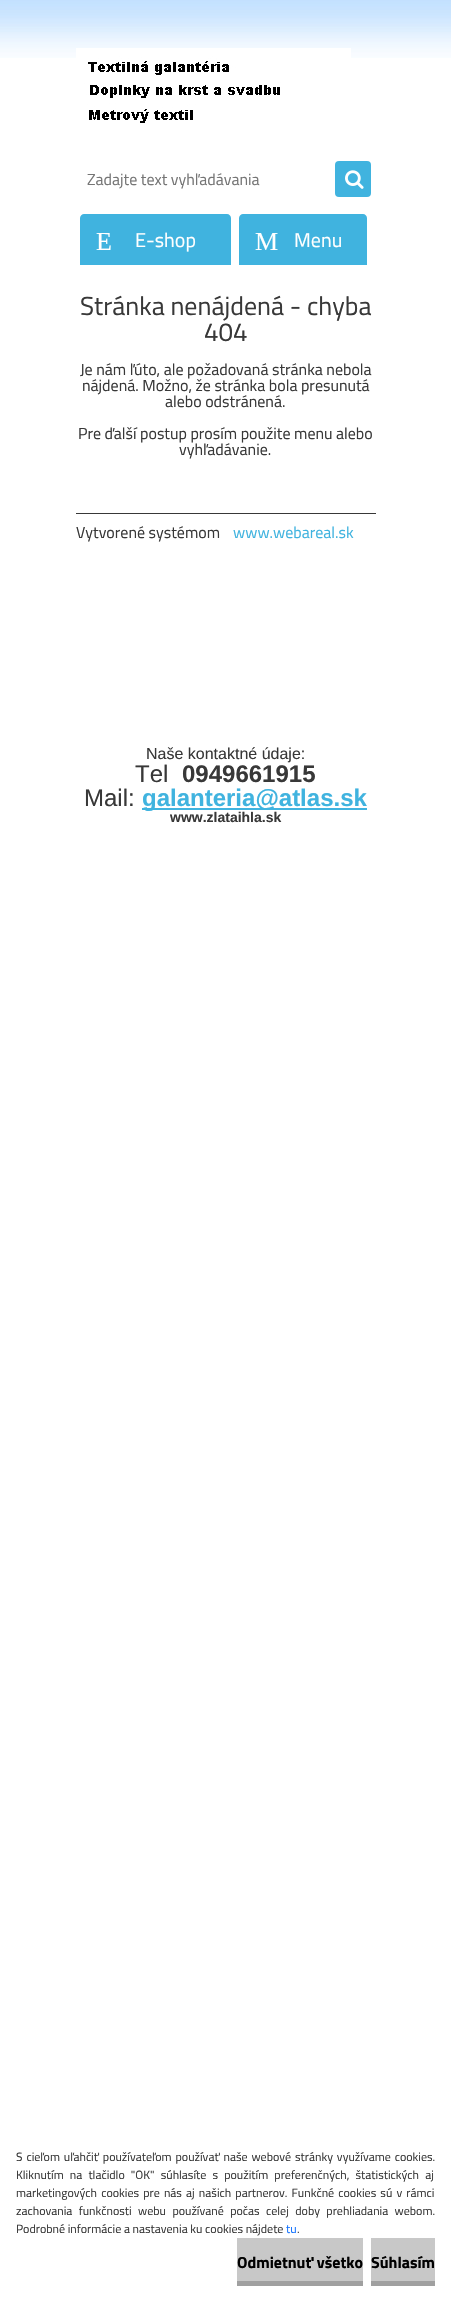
void draw(SkCanvas* canvas) {
	SkPaint paint;
	paint.setAntiAlias(true);
	auto spacedText = [&](const char* s, float x, float y, const SkFont& font, const SkPaint& ink, float letter, float word) {
		std::vector<SkGlyphID> glyphs(font.countText(s, strlen(s), SkTextEncoding::kUTF8));
		std::vector<float> xs(glyphs.size());
		font.textToGlyphs(s, strlen(s), SkTextEncoding::kUTF8, glyphs);
		font.getXPos(glyphs, xs, x);
		float extra = 0;
		for (size_t i = 0; i < glyphs.size(); i++) {
			xs[i] += extra;
			extra += letter + word * (glyphs[i] == font.unicharToGlyph(' '));
		}
		canvas->drawTextBlob(SkTextBlob::MakeFromPosHGlyphs(glyphs, xs, y, font), 0, 0, ink);
	};
	auto svgPath = [&](const char* data, bool evenOdd = false) {
		SkPath result = *SkParsePath::FromSVGString(data);
		if (evenOdd) result.setFillType(SkPathFillType::kEvenOdd);
		return result;
	};
	canvas->clear(0xffffffff);
	canvas->drawImageRect(SkImages::DeferredFromEncodedData(SkData::MakeFromFileName("img1.png")), SkRect::MakeXYWH(0, 0, 451, 58), SkSamplingOptions());
	canvas->drawImageRect(SkImages::DeferredFromEncodedData(SkData::MakeFromFileName("img2.png")), SkRect::MakeXYWH(76, 48, 275, 75), SkSamplingOptions());
	SkFont f1(fontMgr->matchFamilyStyle("Titillium Web", SkFontStyle::Normal()), 16);
	f1.setSubpixel(true);
	paint.setColor(0xff757575);
	canvas->drawString("Zadajte text vyhľadávania", 87, 185, f1, paint);
	paint.setColor(0xff40b3df);
	canvas->drawRoundRect(SkRect::MakeXYWH(335, 161, 36, 36), 4, 4, paint);
	canvas->drawImageRect(SkImages::DeferredFromEncodedData(SkData::MakeFromFileName("img3.png")), SkRect::MakeXYWH(345, 170, 19, 19), SkSamplingOptions());
	canvas->drawPath(svgPath("M84 214H227C229 214 231 216 231 218V265H80V218C80 216 82 214 84 214Z"), paint);
	SkFont f2(fontMgr->matchFamilyStyle("Liberation Serif", SkFontStyle::Normal()), 26);
	f2.setSubpixel(true);
	paint.setColor(0xffffffff);
	canvas->drawString("E", 96, 250, f2, paint);
	SkFont f3(fontMgr->matchFamilyStyle("Titillium Web", SkFontStyle::Normal()), 20);
	f3.setSubpixel(true);
	canvas->drawString("E-shop", 135, 247, f3, paint);
	paint.setColor(0xff40b3df);
	canvas->drawPath(svgPath("M243 214H363C365 214 367 216 367 218V265H239V218C239 216 241 214 243 214Z"), paint);
	paint.setColor(0xffffffff);
	canvas->drawString("M", 255, 250, f2, paint);
	canvas->drawString("Menu", 294, 247, f3, paint);
	SkFont f4(fontMgr->matchFamilyStyle("Titillium Web", SkFontStyle::Normal()), 26);
	f4.setSubpixel(true);
	paint.setColor(0xff383838);
	canvas->drawString("Stránka nenájdená - chyba", 80, 315, f4, paint);
	canvas->drawString("404", 204, 341, f4, paint);
	canvas->drawString("Je nám ľúto, ale požadovaná stránka nebola", 80, 375, f1, paint);
	canvas->drawString("nájdená. Možno, že stránka bola presunutá", 82, 391, f1, paint);
	canvas->drawString("alebo odstránená.", 165, 407, f1, paint);
	canvas->drawString("Pre ďalší postup prosím použite menu alebo", 78, 439, f1, paint);
	canvas->drawString("vyhľadávanie.", 179, 455, f1, paint);
	canvas->drawRect(SkRect::MakeXYWH(76, 513, 300, 1), paint);
	canvas->drawString("Vytvorené systémom", 76, 538, f1, paint);
	paint.setColor(0xff40b3df);
	canvas->drawString("www.webareal.sk", 233, 538, f1, paint);
	SkFont f5(fontMgr->matchFamilyStyle("Liberation Sans", SkFontStyle::Normal()), 16);
	f5.setSubpixel(true);
	paint.setColor(0xff383838);
	canvas->drawString("Naše kontaktné údaje:", 146, 759, f5, paint);
	SkFont f6(fontMgr->matchFamilyStyle("Liberation Sans", SkFontStyle::Normal()), 24);
	f6.setSubpixel(true);
	canvas->drawString("Tel", 135, 782, f6, paint);
	SkFont f7(fontMgr->matchFamilyStyle("Liberation Sans", SkFontStyle::Bold()), 24);
	f7.setSubpixel(true);
	canvas->drawString("0949661915", 182, 782, f7, paint);
	canvas->drawString("Mail:", 84, 806, f6, paint);
	paint.setColor(0xff40b3df);
	canvas->drawRect(SkRect::MakeXYWH(142, 808, 225, 2), paint);
	canvas->drawString("galanteria@atlas.sk", 142, 806, f7, paint);
	SkFont f8(fontMgr->matchFamilyStyle("Liberation Sans", SkFontStyle::Bold()), 14);
	f8.setSubpixel(true);
	paint.setColor(0xff383838);
	canvas->drawString("www.zlataihla.sk", 170, 822, f8, paint);
	SkFont f9(fontMgr->matchFamilyStyle("Titillium Web", SkFontStyle::Normal()), 12);
	f9.setSubpixel(true);
	spacedText("S cieľom uľahčiť používateľom používať naše webové stránky využívame cookies.", 16, 2161, f9, paint, 0, 1.25);
	spacedText("Kliknutím na tlačidlo \"OK\" súhlasíte s použitím preferenčných, štatistických aj", 16, 2179, f9, paint, 0, 3.5);
	spacedText("marketingových cookies pre nás aj našich partnerov. Funkčné cookies sú v rámci", 16, 2197, f9, paint, 0, 1.5);
	spacedText("zachovania funkčnosti webu používané počas celej doby prehliadania webom.", 16, 2215, f9, paint, 0, 3.75);
	canvas->drawString("Podrobné informácie a nastavenia ku cookies nájdete", 16, 2233, f9, paint);
	paint.setColor(0xff0d6efd);
	canvas->drawString("tu", 286, 2233, f9, paint);
	paint.setColor(0xff383838);
	canvas->drawString(".", 297, 2233, f9, paint);
	paint.setColor(0xffc8c8c8);
	canvas->drawRect(SkRect::MakeXYWH(237, 2238, 126, 43), paint);
	paint.setColor(0xffa0a0a0);
	canvas->drawRect(SkRect::MakeXYWH(237, 2281, 126, 5), paint);
	SkFont f10(fontMgr->matchFamilyStyle("Titillium Web", SkFontStyle::Bold()), 16);
	f10.setSubpixel(true);
	paint.setColor(0xff000000);
	canvas->drawString("Odmietnuť všetko", 237, 2268, f10, paint);
	paint.setColor(0xffc8c8c8);
	canvas->drawRect(SkRect::MakeXYWH(371, 2238, 64, 43), paint);
	paint.setColor(0xffa0a0a0);
	canvas->drawRect(SkRect::MakeXYWH(371, 2281, 64, 5), paint);
	paint.setColor(0xff000000);
	canvas->drawString("Súhlasím", 371, 2268, f10, paint);
}
